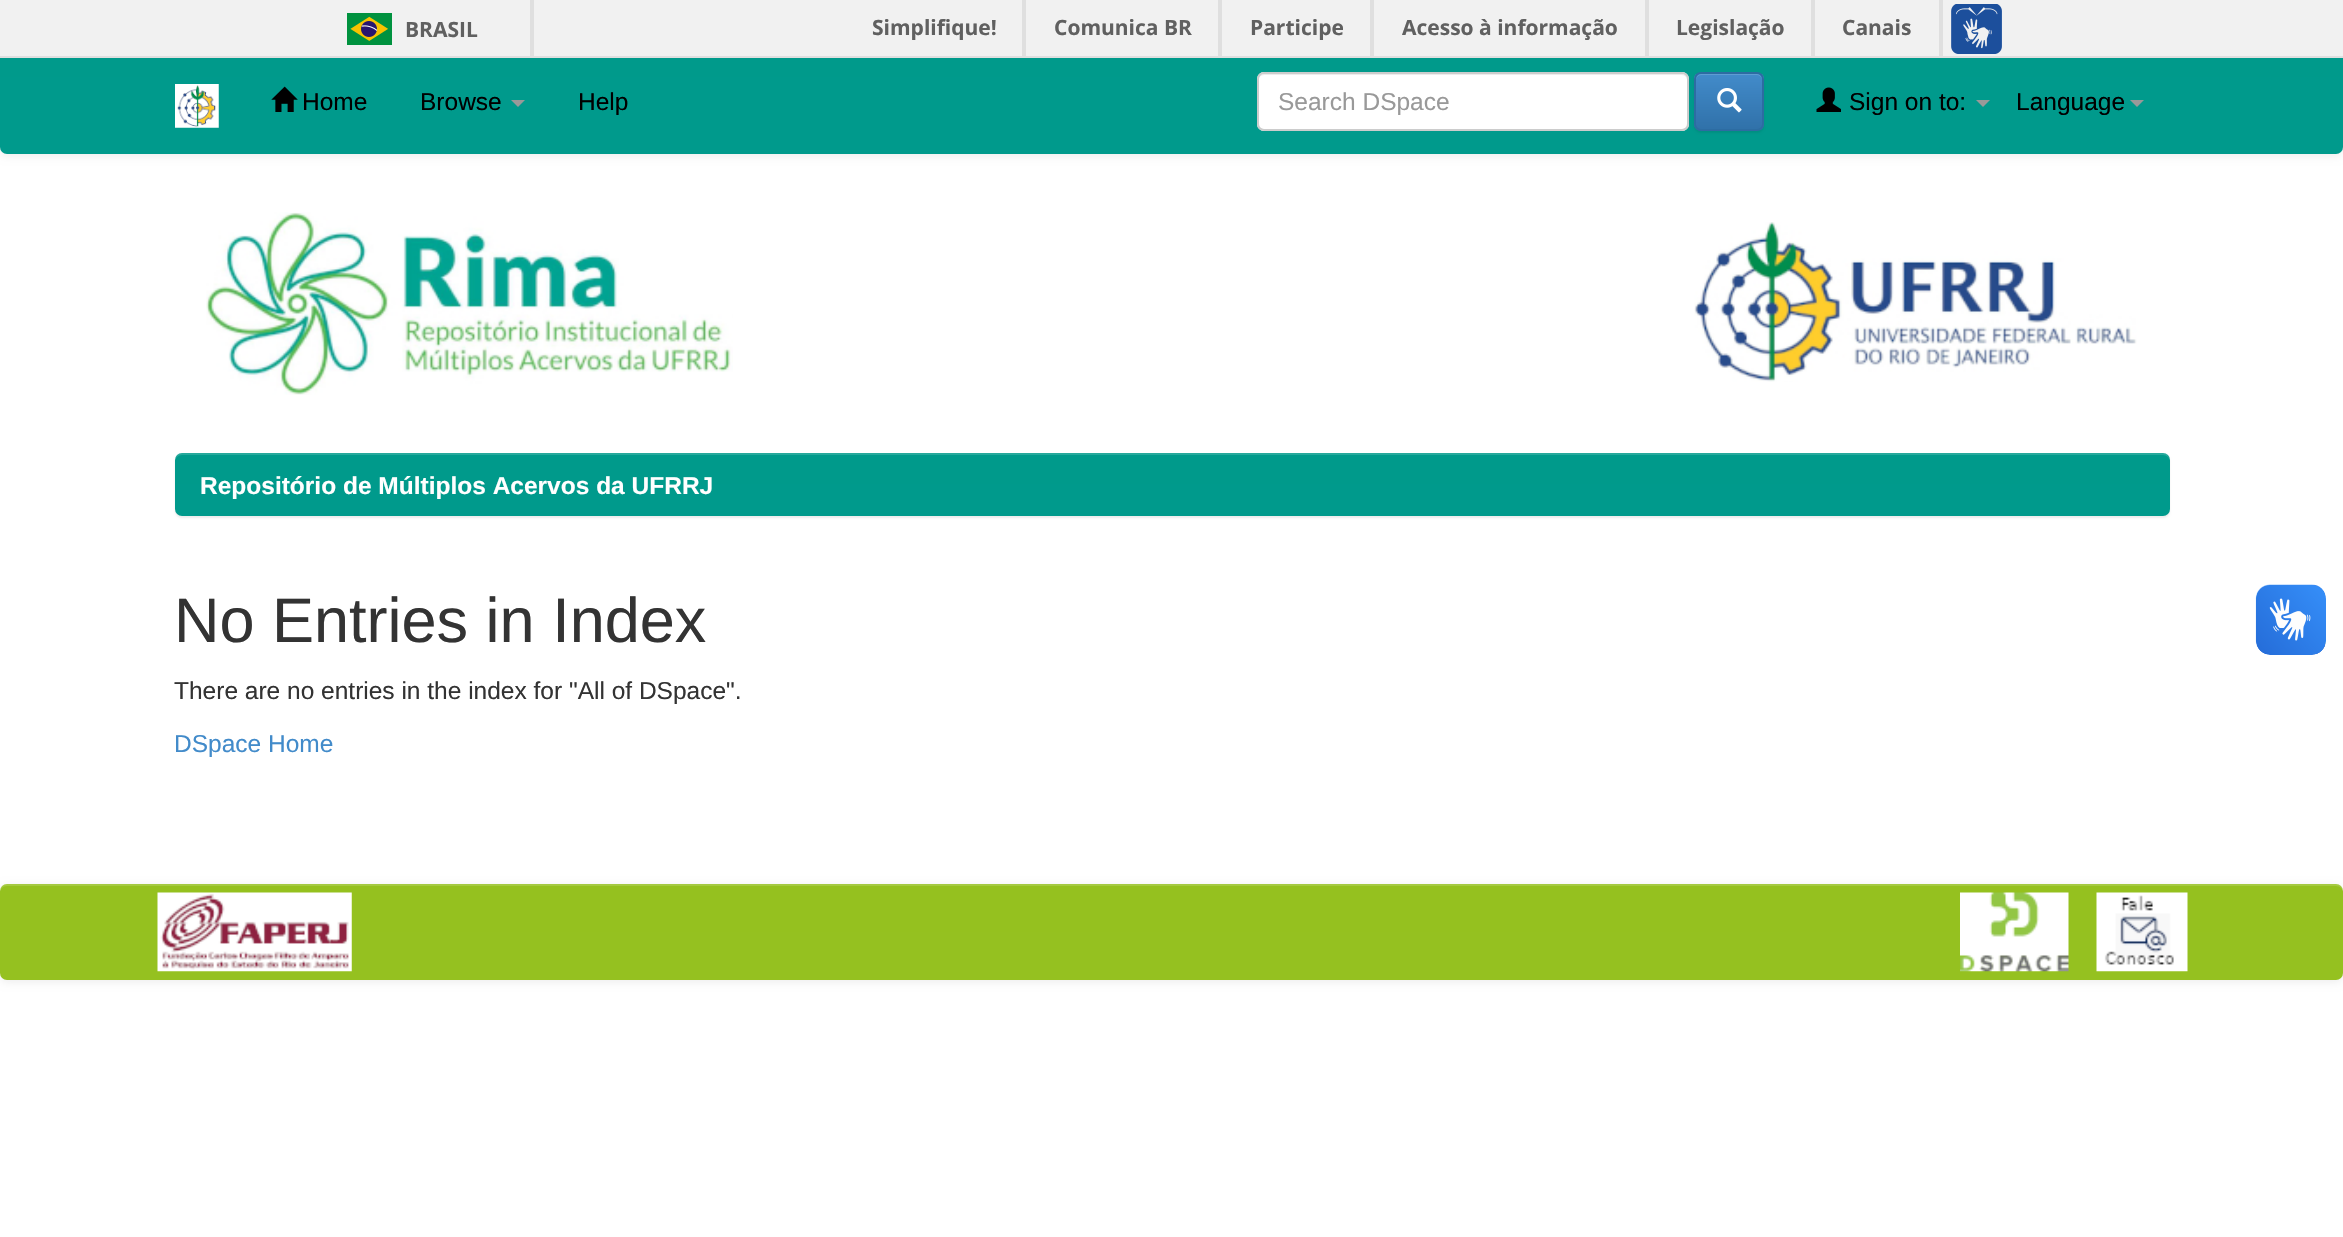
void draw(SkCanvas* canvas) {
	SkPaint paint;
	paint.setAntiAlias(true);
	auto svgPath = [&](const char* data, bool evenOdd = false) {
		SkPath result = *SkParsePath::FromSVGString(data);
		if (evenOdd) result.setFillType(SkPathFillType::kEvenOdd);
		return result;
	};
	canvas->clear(0xffffffff);
	paint.setColor(0x12000000);
	paint.setMaskFilter(SkMaskFilter::MakeBlur(kNormal_SkBlurStyle, 4.5));
	canvas->drawRoundRect(SkRect::MakeXYWH(0, 2, 2343, 154), 7, 7, paint);
	paint.setMaskFilter(nullptr);
	{
		const SkColor colors[] = {0xff009a8b, 0xff009a8c};
		const float stops[] = {0, 1};
		const SkPoint ends[] = {{1172, 0}, {1172, 154}};
		paint.setShader(SkGradientShader::MakeLinear(ends, colors, stops, 2, SkTileMode::kClamp));
		paint.setAlpha(255);
	}
	canvas->drawRoundRect(SkRect::MakeXYWH(0, 0, 2343, 154), 7, 7, paint);
	paint.setShader(nullptr);
	paint.setColor(0xfff1f1f1);
	canvas->drawRect(SkRect::MakeXYWH(0, 0, 2343, 56), paint);
	paint.setColor(0xffdfdfdf);
	canvas->drawRect(SkRect::MakeXYWH(0, 56, 2343, 2), paint);
	canvas->drawRect(SkRect::MakeXYWH(530, 0, 4, 56), paint);
	canvas->drawImageRect(SkImages::DeferredFromEncodedData(SkData::MakeFromFileName("img1.png")), SkRect::MakeXYWH(347, 13, 45, 32), SkSamplingOptions());
	SkFont f1(fontMgr->matchFamilyStyle("Open Sans", SkFontStyle::Bold()), 21);
	f1.setSubpixel(true);
	paint.setColor(0xff606060);
	canvas->drawString("BRASIL", 405, 37, f1, paint);
	paint.setColor(0xffdfdfdf);
	canvas->drawRect(SkRect::MakeXYWH(1022, 0, 4, 56), paint);
	paint.setColor(0xff606060);
	canvas->drawString("Simplifique!", 872, 35, f1, paint);
	paint.setColor(0xffdfdfdf);
	canvas->drawRect(SkRect::MakeXYWH(1218, 0, 4, 56), paint);
	paint.setColor(0xff606060);
	canvas->drawString("Comunica BR", 1054, 35, f1, paint);
	paint.setColor(0xffdfdfdf);
	canvas->drawRect(SkRect::MakeXYWH(1370, 0, 4, 56), paint);
	paint.setColor(0xff606060);
	canvas->drawString("Participe", 1250, 35, f1, paint);
	paint.setColor(0xffdfdfdf);
	canvas->drawRect(SkRect::MakeXYWH(1645, 0, 4, 56), paint);
	paint.setColor(0xff606060);
	canvas->drawString("Acesso à informação", 1402, 35, f1, paint);
	paint.setColor(0xffdfdfdf);
	canvas->drawRect(SkRect::MakeXYWH(1811, 0, 4, 56), paint);
	paint.setColor(0xff606060);
	canvas->drawString("Legislação", 1676, 35, f1, paint);
	paint.setColor(0xffdfdfdf);
	canvas->drawRect(SkRect::MakeXYWH(1939, 0, 4, 56), paint);
	paint.setColor(0xff606060);
	canvas->drawString("Canais", 1842, 35, f1, paint);
	canvas->drawImageRect(SkImages::DeferredFromEncodedData(SkData::MakeFromFileName("img2.png")), SkRect::MakeXYWH(1951, 4, 51, 50), SkSamplingOptions());
	canvas->drawImageRect(SkImages::DeferredFromEncodedData(SkData::MakeFromFileName("img3.png")), SkRect::MakeXYWH(175, 84, 44, 44), SkSamplingOptions());
	canvas->drawImageRect(SkImages::DeferredFromEncodedData(SkData::MakeFromFileName("img4.png")), SkRect::MakeXYWH(271, 86, 27, 26), SkSamplingOptions());
	SkFont f2(fontMgr->matchFamilyStyle("Liberation Sans", SkFontStyle::Normal()), 24.5);
	f2.setSubpixel(true);
	paint.setColor(0xff000000);
	canvas->drawString("Home", 302, 110, f2, paint);
	canvas->drawString("Browse", 420, 110, f2, paint);
	paint.setColor(0xff999999);
	canvas->drawPath(svgPath("M511 100H525L518 107Z"), paint);
	paint.setColor(0xff000000);
	canvas->drawString("Help", 578, 110, f2, paint);
	paint.setColor(0xffffffff);
	canvas->drawRoundRect(SkRect::MakeXYWH(1257, 72, 432, 59), 7, 7, paint);
	paint.setColor(0xffececec);
	canvas->drawPath(svgPath("M1264 75H1682C1685 75 1687 78 1687 80C1687 77 1685 74 1682 74H1263C1260 74 1258 77 1258 80C1258 78 1261 75 1264 75Z"), paint);
	paint.setStroke(true);
	paint.setStrokeWidth(2);
	paint.setColor(0xffcccccc);
	canvas->drawRoundRect(SkRect::MakeXYWH(1258, 73, 430, 57), 6, 6, paint);
	paint.setStroke(false);
	paint.setColor(0xff999999);
	canvas->drawString("Search DSpace", 1278, 110, f2, paint);
	paint.setColor(0x12000000);
	paint.setMaskFilter(SkMaskFilter::MakeBlur(kNormal_SkBlurStyle, 1));
	canvas->drawRoundRect(SkRect::MakeXYWH(1694, 74, 70, 59), 7, 7, paint);
	paint.setMaskFilter(nullptr);
	canvas->save();
	canvas->clipPath(svgPath("M1701 72H1757C1761 72 1764 75 1764 79V124C1764 128 1761 131 1757 131H1701C1697 131 1694 128 1694 124V79C1694 75 1697 72 1701 72Z"), true);
	{
		const SkColor colors[] = {0xff428bca, 0xff3071a9};
		const float stops[] = {0, 1};
		const SkPoint ends[] = {{1729, 74}, {1729, 130}};
		paint.setShader(SkGradientShader::MakeLinear(ends, colors, stops, 2, SkTileMode::kClamp));
		paint.setAlpha(255);
	}
	canvas->drawRect(SkRect::MakeXYWH(1694, 74, 70, 56), paint);
	canvas->restore();
	paint.setShader(nullptr);
	paint.setColor(0xff5e9cd2);
	canvas->drawPath(svgPath("M1701 75H1757C1760 75 1762 78 1762 80C1762 72 1754 74 1748 74H1710C1704 74 1696 72 1696 80C1696 78 1698 75 1701 75Z"), paint);
	paint.setStroke(true);
	paint.setColor(0xff2d6ca2);
	canvas->drawRoundRect(SkRect::MakeXYWH(1695, 73, 68, 57), 6, 6, paint);
	canvas->drawImageRect(SkImages::DeferredFromEncodedData(SkData::MakeFromFileName("img5.png")), SkRect::MakeXYWH(1717, 88, 25, 25), SkSamplingOptions());
	canvas->drawImageRect(SkImages::DeferredFromEncodedData(SkData::MakeFromFileName("img6.png")), SkRect::MakeXYWH(1816, 87, 25, 25), SkSamplingOptions());
	paint.setStroke(false);
	paint.setColor(0xff000000);
	canvas->drawString("Sign on to:", 1849, 110, f2, paint);
	paint.setColor(0xff999999);
	canvas->drawPath(svgPath("M1976 100H1990L1983 107Z"), paint);
	paint.setColor(0xff000000);
	canvas->drawString("Language", 2016, 110, f2, paint);
	paint.setColor(0xff999999);
	canvas->drawPath(svgPath("M2130 100H2144L2137 107Z"), paint);
	canvas->drawImageRect(SkImages::DeferredFromEncodedData(SkData::MakeFromFileName("img7.png")), SkRect::MakeXYWH(206, 212, 527, 183), SkSamplingOptions());
	canvas->drawImageRect(SkImages::DeferredFromEncodedData(SkData::MakeFromFileName("img8.png")), SkRect::MakeXYWH(1694, 222, 443, 160), SkSamplingOptions());
	paint.setColor(0x12000000);
	paint.setMaskFilter(SkMaskFilter::MakeBlur(kNormal_SkBlurStyle, 1));
	canvas->drawRoundRect(SkRect::MakeXYWH(175, 455, 1995, 63), 7, 7, paint);
	paint.setMaskFilter(nullptr);
	{
		const SkColor colors[] = {0xff009a8b, 0xff009a8c};
		const float stops[] = {0, 1};
		const SkPoint ends[] = {{1173, 453}, {1173, 516}};
		paint.setShader(SkGradientShader::MakeLinear(ends, colors, stops, 2, SkTileMode::kClamp));
		paint.setAlpha(255);
	}
	canvas->drawRoundRect(SkRect::MakeXYWH(175, 453, 1995, 63), 7, 7, paint);
	paint.setShader(nullptr);
	paint.setColor(0x26ffffff);
	canvas->drawPath(svgPath("M182 455H2163C2167 455 2170 458 2170 462C2170 458 2168 453 2163 453H182C177 453 175 458 175 462C175 458 178 455 182 455Z"), paint);
	SkFont f3(fontMgr->matchFamilyStyle("Liberation Sans", SkFontStyle::Bold()), 24.5);
	f3.setSubpixel(true);
	paint.setColor(0xffffffff);
	canvas->drawString("Repositório de Múltiplos Acervos da UFRRJ", 200, 494, f3, paint);
	SkFont f4(fontMgr->matchFamilyStyle("Liberation Sans", SkFontStyle::Normal()), 63);
	f4.setSubpixel(true);
	paint.setColor(0xff333333);
	canvas->drawString("No Entries in Index", 174, 642, f4, paint);
	canvas->drawString("There are no entries in the index for \"All of DSpace\".", 174, 699, f2, paint);
	paint.setColor(0xff428bca);
	canvas->drawString("DSpace Home", 174, 752, f2, paint);
	canvas->drawImageRect(SkImages::DeferredFromEncodedData(SkData::MakeFromFileName("img9.png")), SkRect::MakeXYWH(2255, 584, 71, 71), SkSamplingOptions());
	canvas->drawImageRect(SkImages::DeferredFromEncodedData(SkData::MakeFromFileName("img10.png")), SkRect::MakeXYWH(2256, 585, 70, 70), SkSamplingOptions());
	paint.setColor(0x12000000);
	paint.setMaskFilter(SkMaskFilter::MakeBlur(kNormal_SkBlurStyle, 4.5));
	canvas->drawRoundRect(SkRect::MakeXYWH(0, 886, 2343, 96), 7, 7, paint);
	paint.setMaskFilter(nullptr);
	{
		const SkColor colors[] = {0xff95c11f, 0xff95c120};
		const float stops[] = {0, 1};
		const SkPoint ends[] = {{1172, 884}, {1172, 980}};
		paint.setShader(SkGradientShader::MakeLinear(ends, colors, stops, 2, SkTileMode::kClamp));
		paint.setAlpha(255);
	}
	canvas->drawRoundRect(SkRect::MakeXYWH(0, 884, 2343, 96), 7, 7, paint);
	paint.setShader(nullptr);
	paint.setColor(0x26ffffff);
	canvas->drawPath(svgPath("M7 886H2336C2340 886 2343 889 2343 892V891C2343 887 2340 884 2336 884H7C3 884 0 887 0 891V892C0 889 3 886 7 886Z"), paint);
	canvas->drawImageRect(SkImages::DeferredFromEncodedData(SkData::MakeFromFileName("img11.png")), SkRect::MakeXYWH(157, 892, 195, 80), SkSamplingOptions());
	canvas->drawImageRect(SkImages::DeferredFromEncodedData(SkData::MakeFromFileName("img12.png")), SkRect::MakeXYWH(1960, 892, 109, 80), SkSamplingOptions());
	canvas->drawImageRect(SkImages::DeferredFromEncodedData(SkData::MakeFromFileName("img13.png")), SkRect::MakeXYWH(2096, 892, 92, 80), SkSamplingOptions());
}
